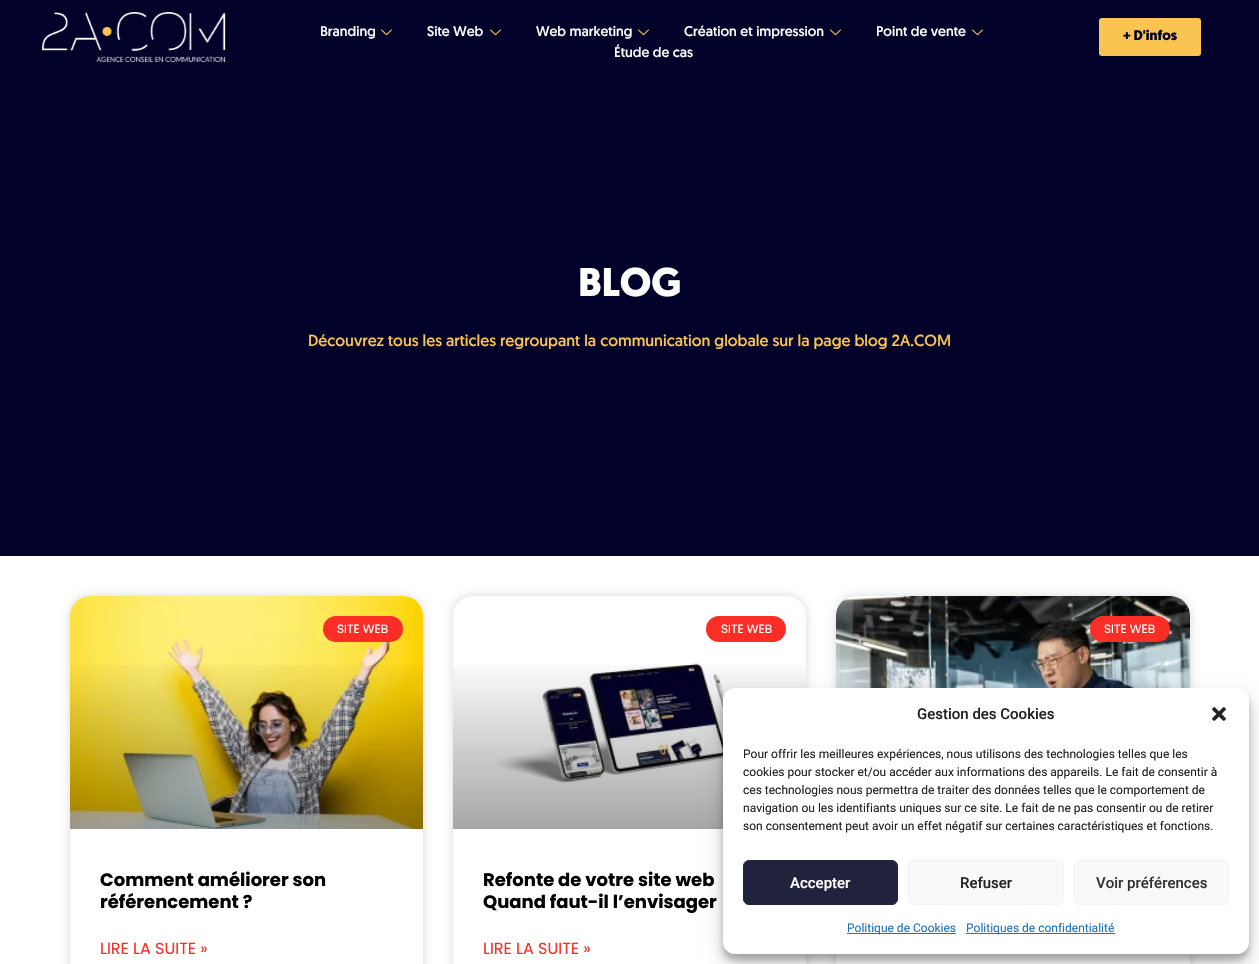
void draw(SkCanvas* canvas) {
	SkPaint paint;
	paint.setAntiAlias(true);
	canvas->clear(0xffffffff);
	paint.setColor(0xff020129);
	canvas->drawRect(SkRect::MakeXYWH(0, 0, 1259, 556), paint);
	canvas->drawImageRect(SkImages::DeferredFromEncodedData(SkData::MakeFromFileName("img1.png")), SkRect::MakeXYWH(42, 12, 184, 50), SkSamplingOptions());
	SkFont f1(fontMgr->matchFamilyStyle("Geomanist", SkFontStyle::Normal()), 14);
	f1.setSubpixel(true);
	paint.setColor(0xffffffff);
	canvas->drawString("Branding", 320, 36, f1, paint);
	canvas->drawImageRect(SkImages::DeferredFromEncodedData(SkData::MakeFromFileName("img2.png")), SkRect::MakeXYWH(381, 29, 11, 7), SkSamplingOptions());
	canvas->drawString("Site Web", 427, 36, f1, paint);
	canvas->drawImageRect(SkImages::DeferredFromEncodedData(SkData::MakeFromFileName("img2.png")), SkRect::MakeXYWH(490, 29, 11, 7), SkSamplingOptions());
	canvas->drawString("Web marketing", 536, 36, f1, paint);
	canvas->drawImageRect(SkImages::DeferredFromEncodedData(SkData::MakeFromFileName("img2.png")), SkRect::MakeXYWH(638, 29, 11, 7), SkSamplingOptions());
	canvas->drawString("Création et impression", 684, 36, f1, paint);
	canvas->drawImageRect(SkImages::DeferredFromEncodedData(SkData::MakeFromFileName("img2.png")), SkRect::MakeXYWH(830, 29, 11, 7), SkSamplingOptions());
	canvas->drawString("Point de vente", 876, 36, f1, paint);
	canvas->drawImageRect(SkImages::DeferredFromEncodedData(SkData::MakeFromFileName("img2.png")), SkRect::MakeXYWH(972, 29, 11, 7), SkSamplingOptions());
	canvas->drawString("Étude de cas", 614, 57, f1, paint);
	paint.setColor(0xfffac450);
	canvas->drawRoundRect(SkRect::MakeXYWH(1099, 18, 102, 38), 3, 3, paint);
	SkFont f2(fontMgr->matchFamilyStyle("Geomanist", SkFontStyle::Bold()), 14);
	f2.setSubpixel(true);
	paint.setColor(0xff020129);
	canvas->drawString("+ D'infos", 1123, 40, f2, paint);
	SkFont f3(fontMgr->matchFamilyStyle("Geomanist", SkFontStyle::Bold()), 40);
	f3.setSubpixel(true);
	paint.setColor(0xffffffff);
	canvas->drawString("BLOG", 578, 296, f3, paint);
	SkFont f4(fontMgr->matchFamilyStyle("Geomanist", SkFontStyle::Normal()), 16);
	f4.setSubpixel(true);
	paint.setColor(0xfffac450);
	canvas->drawString("Découvrez tous les articles regroupant la communication globale sur la page blog 2A.COM", 308, 346, f4, paint);
	paint.setColor(0x26000000);
	paint.setMaskFilter(SkMaskFilter::MakeBlur(kNormal_SkBlurStyle, 5));
	canvas->drawRoundRect(SkRect::MakeXYWH(70, 596, 353, 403), 20, 20, paint);
	paint.setMaskFilter(nullptr);
	paint.setColor(0xffffffff);
	canvas->drawRoundRect(SkRect::MakeXYWH(70, 596, 353, 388), 20, 20, paint);
	canvas->drawImageRect(SkImages::DeferredFromEncodedData(SkData::MakeFromFileName("img3.png")), SkRect::MakeXYWH(70, 596, 353, 233), SkSamplingOptions());
	{
		const SkColor colors[] = {0x59000000, 0x00000000};
		const float stops[] = {0, 0.75};
		const SkPoint ends[] = {{247, 829}, {247, 596}};
		paint.setShader(SkGradientShader::MakeLinear(ends, colors, stops, 2, SkTileMode::kClamp));
		paint.setAlpha(255);
	}
	canvas->drawRect(SkRect::MakeXYWH(70, 665, 353, 164), paint);
	paint.setShader(nullptr);
	paint.setColor(0xfffa2e27);
	canvas->drawRoundRect(SkRect::MakeXYWH(323, 616, 80, 26), 13, 13, paint);
	SkFont f5(fontMgr->matchFamilyStyle("Poppins", SkFontStyle::Normal()), 12);
	f5.setSubpixel(true);
	paint.setColor(0xffffffff);
	canvas->drawString("SITE WEB", 337, 633, f5, paint);
	SkFont f6(fontMgr->matchFamilyStyle("Poppins", SkFontStyle::Bold()), 18);
	f6.setSubpixel(true);
	paint.setColor(0xff000000);
	canvas->drawString("Comment améliorer son", 100, 886, f6, paint);
	canvas->drawString("référencement ?", 100, 908, f6, paint);
	SkFont f7(fontMgr->matchFamilyStyle("Poppins", SkFontStyle::Normal()), 16);
	f7.setSubpixel(true);
	paint.setColor(0xfffa2e27);
	canvas->drawString("LIRE LA SUITE »", 100, 954, f7, paint);
	paint.setColor(0x26000000);
	paint.setMaskFilter(SkMaskFilter::MakeBlur(kNormal_SkBlurStyle, 5));
	canvas->drawRoundRect(SkRect::MakeXYWH(453, 596, 353, 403), 20, 20, paint);
	paint.setMaskFilter(nullptr);
	paint.setColor(0xffffffff);
	canvas->drawRoundRect(SkRect::MakeXYWH(453, 596, 353, 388), 20, 20, paint);
	paint.setColor(0xfffa2e27);
	canvas->drawRoundRect(SkRect::MakeXYWH(706, 616, 80, 26), 13, 13, paint);
	paint.setColor(0xffffffff);
	canvas->drawString("SITE WEB", 721, 633, f5, paint);
	canvas->drawImageRect(SkImages::DeferredFromEncodedData(SkData::MakeFromFileName("img4.png")), SkRect::MakeXYWH(496, 663, 229, 120), SkSamplingOptions());
	{
		const SkColor colors[] = {0x59000000, 0x00000000};
		const float stops[] = {0, 0.75};
		const SkPoint ends[] = {{630, 829}, {630, 596}};
		paint.setShader(SkGradientShader::MakeLinear(ends, colors, stops, 2, SkTileMode::kClamp));
		paint.setAlpha(255);
	}
	canvas->drawRect(SkRect::MakeXYWH(453, 665, 353, 164), paint);
	paint.setShader(nullptr);
	paint.setColor(0xff000000);
	canvas->drawString("Refonte de votre site web", 483, 886, f6, paint);
	canvas->drawString("Quand faut-il l’envisager", 483, 908, f6, paint);
	paint.setColor(0xfffa2e27);
	canvas->drawString("LIRE LA SUITE »", 483, 954, f7, paint);
	paint.setColor(0x26000000);
	paint.setMaskFilter(SkMaskFilter::MakeBlur(kNormal_SkBlurStyle, 5));
	canvas->drawRoundRect(SkRect::MakeXYWH(836, 596, 354, 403), 20, 20, paint);
	paint.setMaskFilter(nullptr);
	paint.setColor(0xffffffff);
	canvas->drawRoundRect(SkRect::MakeXYWH(836, 596, 354, 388), 20, 20, paint);
	canvas->drawImageRect(SkImages::DeferredFromEncodedData(SkData::MakeFromFileName("img5.png")), SkRect::MakeXYWH(836, 596, 354, 92), SkSamplingOptions());
	{
		const SkColor colors[] = {0x59000000, 0x00000000};
		const float stops[] = {0, 0.75};
		const SkPoint ends[] = {{1013, 829}, {1013, 596}};
		paint.setShader(SkGradientShader::MakeLinear(ends, colors, stops, 2, SkTileMode::kClamp));
		paint.setAlpha(255);
	}
	canvas->drawRect(SkRect::MakeXYWH(836, 665, 354, 23), paint);
	paint.setShader(nullptr);
	paint.setColor(0xfffa2e27);
	canvas->drawRoundRect(SkRect::MakeXYWH(1090, 616, 80, 26), 13, 13, paint);
	paint.setColor(0xffffffff);
	canvas->drawString("SITE WEB", 1104, 633, f5, paint);
	paint.setColor(0x3b000000);
	paint.setMaskFilter(SkMaskFilter::MakeBlur(kNormal_SkBlurStyle, 3));
	canvas->drawRoundRect(SkRect::MakeXYWH(723, 694, 526, 266), 12, 12, paint);
	paint.setMaskFilter(nullptr);
	paint.setColor(0x30000000);
	paint.setMaskFilter(SkMaskFilter::MakeBlur(kNormal_SkBlurStyle, 10));
	canvas->drawRoundRect(SkRect::MakeXYWH(723, 698, 526, 266), 12, 12, paint);
	paint.setMaskFilter(nullptr);
	paint.setColor(0xffffffff);
	canvas->drawRoundRect(SkRect::MakeXYWH(723, 688, 526, 266), 12, 12, paint);
	SkFont f8(fontMgr->matchFamilyStyle("Roboto", SkFontStyle(500, SkFontStyle::kNormal_Width, SkFontStyle::kUpright_Slant)), 15);
	f8.setSubpixel(true);
	paint.setColor(0xff222222);
	canvas->drawString("Gestion des Cookies", 917, 719, f8, paint);
	canvas->drawImageRect(SkImages::DeferredFromEncodedData(SkData::MakeFromFileName("img6.png")), SkRect::MakeXYWH(1212, 707, 14, 14), SkSamplingOptions());
	SkFont f9(fontMgr->matchFamilyStyle("Roboto", SkFontStyle::Normal()), 12);
	f9.setSubpixel(true);
	canvas->drawString("Pour offrir les meilleures expériences, nous utilisons des technologies telles que les", 743, 758, f9, paint);
	canvas->drawString("cookies pour stocker et/ou accéder aux informations des appareils. Le fait de consentir à", 743, 776, f9, paint);
	canvas->drawString("ces technologies nous permettra de traiter des données telles que le comportement de", 743, 794, f9, paint);
	canvas->drawString("navigation ou les identifiants uniques sur ce site. Le fait de ne pas consentir ou de retirer", 743, 812, f9, paint);
	canvas->drawString("son consentement peut avoir un effet négatif sur certaines caractéristiques et fonctions.", 743, 830, f9, paint);
	paint.setColor(0xff21233d);
	canvas->drawRoundRect(SkRect::MakeXYWH(743.5, 860.5, 154, 44), 5.5, 5.5, paint);
	paint.setStroke(true);
	paint.setStrokeWidth(1);
	canvas->drawRoundRect(SkRect::MakeXYWH(743.5, 860.5, 154, 44), 5.5, 5.5, paint);
	paint.setStroke(false);
	paint.setColor(0xffffffff);
	canvas->drawString("Accepter", 790, 888, f8, paint);
	paint.setColor(0xfff9f9f9);
	canvas->drawRoundRect(SkRect::MakeXYWH(908.5, 860.5, 155, 44), 5.5, 5.5, paint);
	paint.setStroke(true);
	paint.setColor(0xfff2f2f2);
	canvas->drawRoundRect(SkRect::MakeXYWH(908.5, 860.5, 155, 44), 5.5, 5.5, paint);
	paint.setStroke(false);
	paint.setColor(0xff222222);
	canvas->drawString("Refuser", 960, 888, f8, paint);
	paint.setColor(0xfff9f9f9);
	canvas->drawRoundRect(SkRect::MakeXYWH(1074.5, 860.5, 154, 44), 5.5, 5.5, paint);
	paint.setStroke(true);
	paint.setColor(0xfff2f2f2);
	canvas->drawRoundRect(SkRect::MakeXYWH(1074.5, 860.5, 154, 44), 5.5, 5.5, paint);
	paint.setStroke(false);
	paint.setColor(0xff333333);
	canvas->drawString("Voir préférences", 1096, 888, f8, paint);
	paint.setColor(0xff1e73be);
	canvas->drawRect(SkRect::MakeXYWH(847, 933, 109, 1), paint);
	canvas->drawString("Politique de Cookies", 847, 932, f9, paint);
	canvas->drawRect(SkRect::MakeXYWH(966, 933, 149, 1), paint);
	canvas->drawString("Politiques de confidentialité", 966, 932, f9, paint);
}
